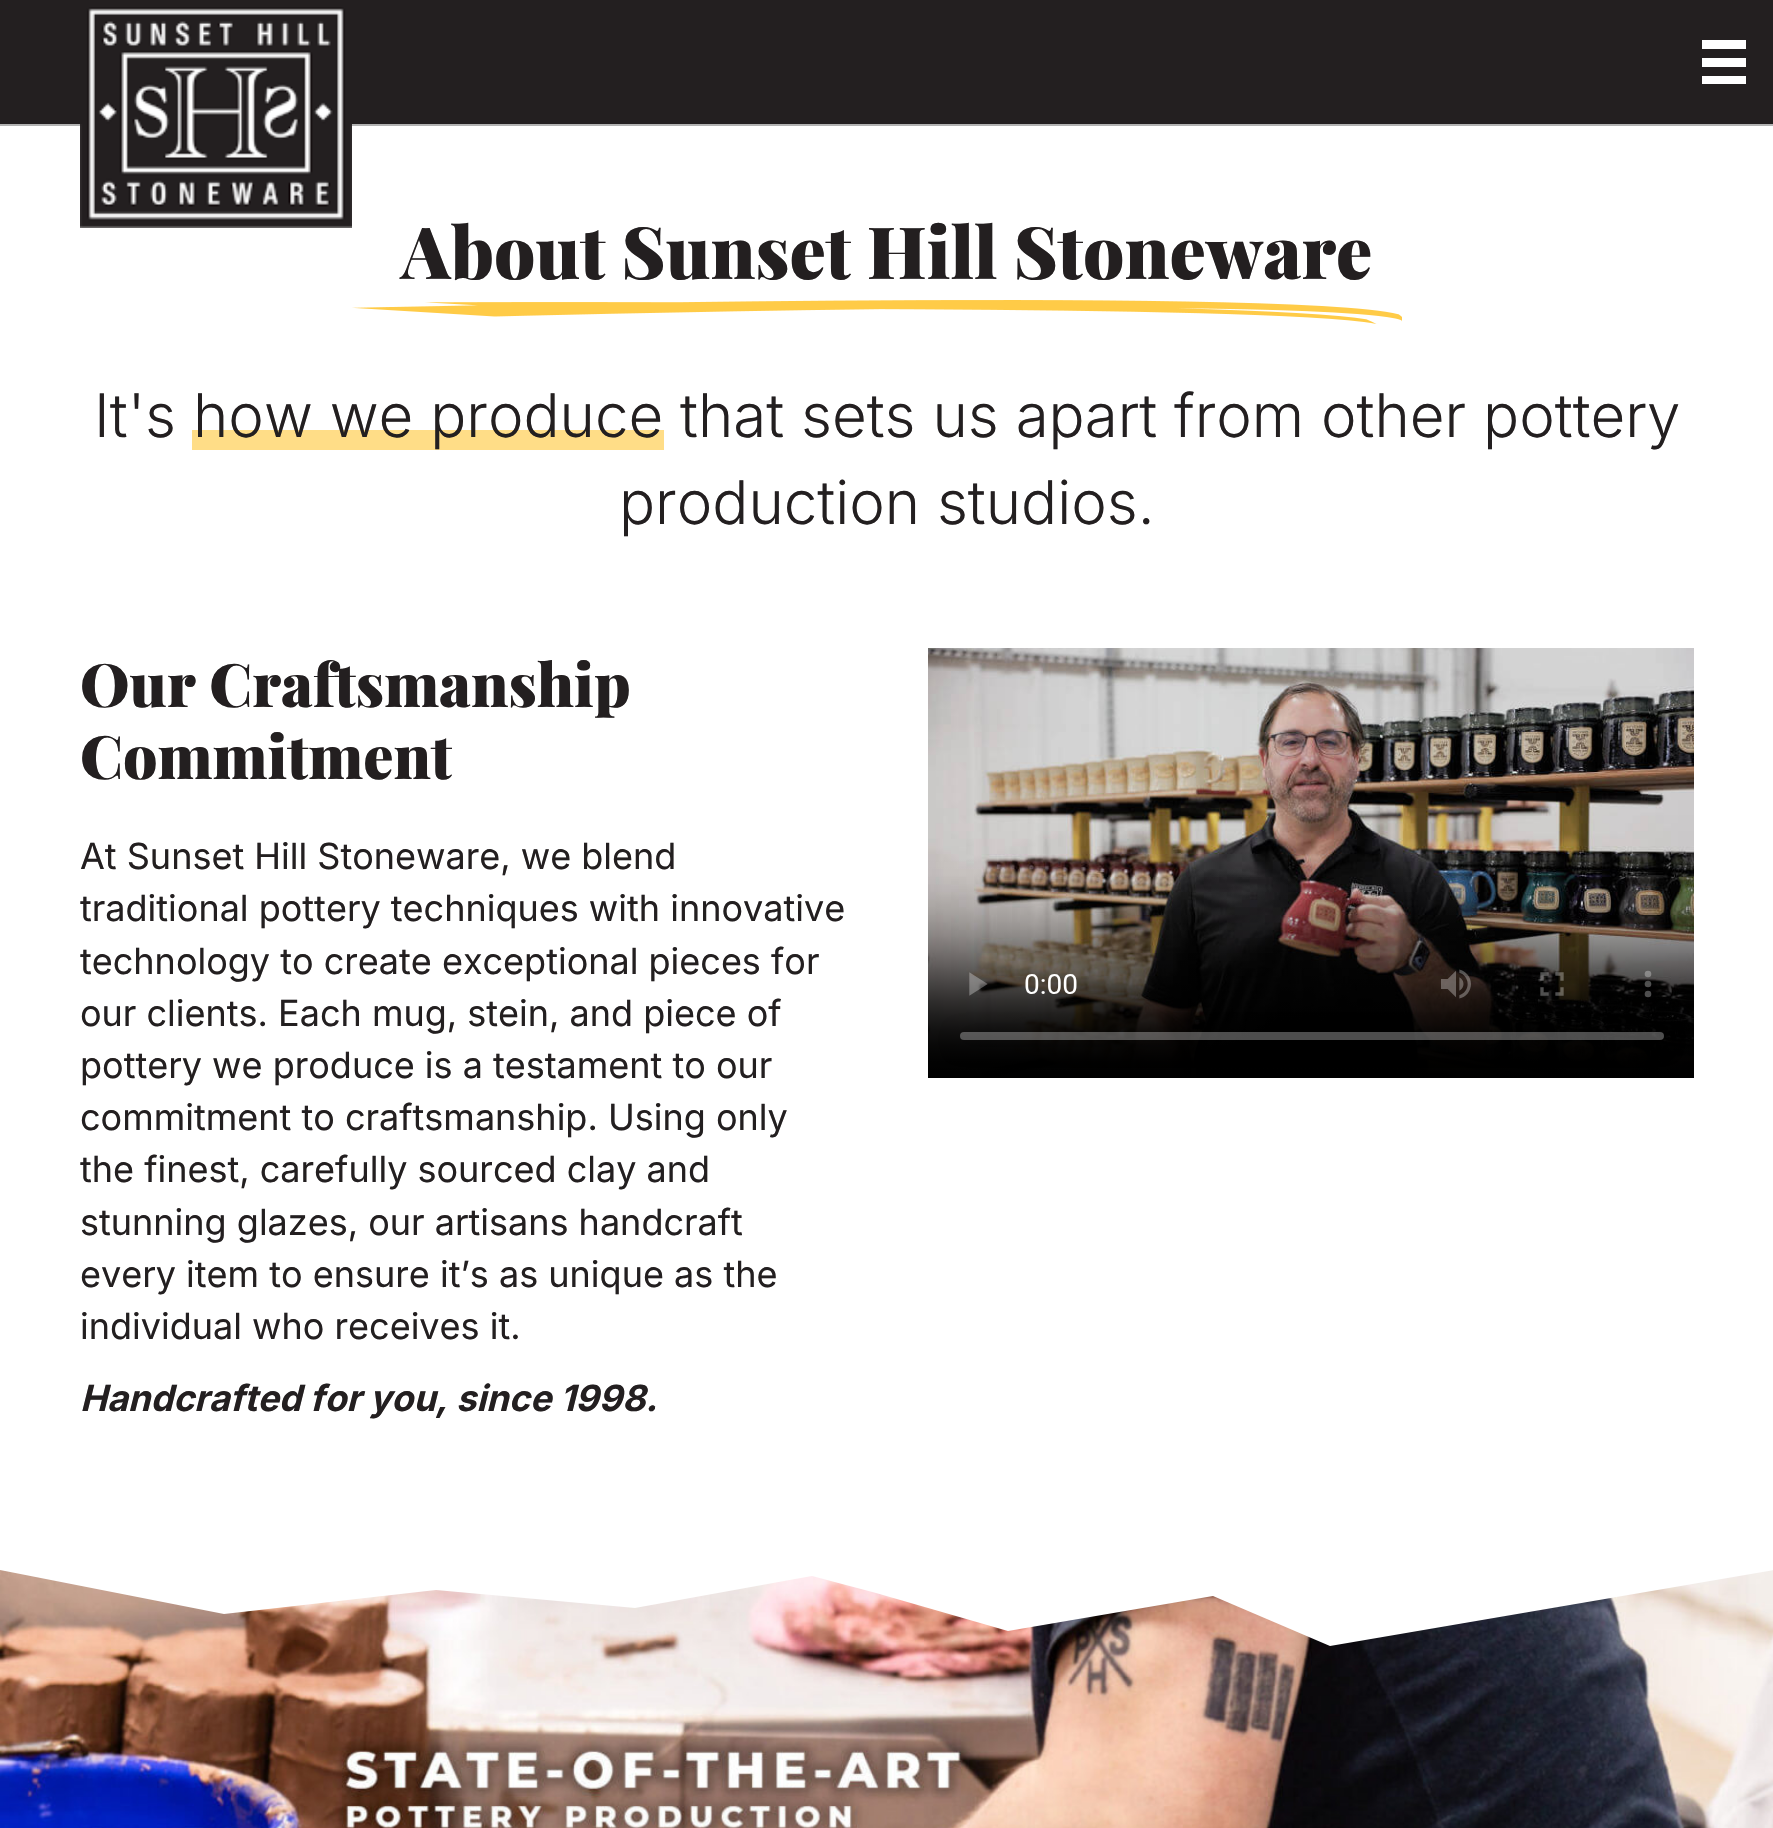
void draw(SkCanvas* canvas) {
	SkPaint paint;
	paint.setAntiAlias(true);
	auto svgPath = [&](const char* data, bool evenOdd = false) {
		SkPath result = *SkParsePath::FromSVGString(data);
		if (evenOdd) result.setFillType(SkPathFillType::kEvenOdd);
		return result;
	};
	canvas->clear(0xffffffff);
	paint.setColor(0xff231f20);
	canvas->drawRect(SkRect::MakeXYWH(0, 0, 1773, 124), paint);
	paint.setColor(0xffb2b2b2);
	canvas->drawRect(SkRect::MakeXYWH(0, 124, 1773, 2), paint);
	canvas->drawImageRect(SkImages::DeferredFromEncodedData(SkData::MakeFromFileName("img1.png")), SkRect::MakeXYWH(80, 7, 272, 221), SkSamplingOptions());
	paint.setColor(0xffffffff);
	canvas->drawRect(SkRect::MakeXYWH(1702, 40, 44, 9), paint);
	canvas->drawRect(SkRect::MakeXYWH(1702, 58, 44, 9), paint);
	canvas->drawRect(SkRect::MakeXYWH(1702, 76, 44, 8), paint);
	SkFont f1(fontMgr->matchFamilyStyle("Playfair Display", SkFontStyle(900, SkFontStyle::kNormal_Width, SkFontStyle::kUpright_Slant)), 72);
	f1.setSubpixel(true);
	paint.setColor(0xff231f20);
	canvas->drawString("About Sunset Hill Stoneware", 401, 279, f1, paint);
	canvas->drawImageRect(SkImages::DeferredFromEncodedData(SkData::MakeFromFileName("img2.png")), SkRect::MakeXYWH(352, 300, 1050, 24), SkSamplingOptions());
	SkFont f2(fontMgr->matchFamilyStyle("Inter", SkFontStyle(300, SkFontStyle::kNormal_Width, SkFontStyle::kUpright_Slant)), 60);
	f2.setSubpixel(true);
	canvas->drawString("It's", 94, 437, f2, paint);
	paint.setColor(0xffffdd87);
	canvas->drawRect(SkRect::MakeXYWH(192, 430, 472, 20), paint);
	paint.setColor(0xff231f20);
	canvas->drawString("how we produce", 193, 437, f2, paint);
	canvas->drawString("that sets us apart from other pottery", 680, 437, f2, paint);
	canvas->drawString("production studios.", 619, 524, f2, paint);
	SkFont f3(fontMgr->matchFamilyStyle("Playfair Display", SkFontStyle(900, SkFontStyle::kNormal_Width, SkFontStyle::kUpright_Slant)), 60);
	f3.setSubpixel(true);
	canvas->drawString("Our Craftsmanship", 80, 707, f3, paint);
	canvas->drawString("Commitment", 80, 779, f3, paint);
	SkFont f4(fontMgr->matchFamilyStyle("Inter", SkFontStyle::Normal()), 36);
	f4.setSubpixel(true);
	canvas->drawString("At Sunset Hill Stoneware, we blend", 80, 869, f4, paint);
	canvas->drawString("traditional pottery techniques with innovative", 80, 921, f4, paint);
	canvas->drawString("technology to create exceptional pieces for", 80, 974, f4, paint);
	canvas->drawString("our clients. Each mug, stein, and piece of", 80, 1026, f4, paint);
	canvas->drawString("pottery we produce is a testament to our", 80, 1078, f4, paint);
	canvas->drawString("commitment to craftsmanship. Using only", 80, 1130, f4, paint);
	canvas->drawString("the finest, carefully sourced clay and", 80, 1182, f4, paint);
	canvas->drawString("stunning glazes, our artisans handcraft", 80, 1235, f4, paint);
	canvas->drawString("every item to ensure it’s as unique as the", 80, 1287, f4, paint);
	canvas->drawString("individual who receives it.", 80, 1339, f4, paint);
	SkFont f5(fontMgr->matchFamilyStyle("Inter", SkFontStyle::BoldItalic()), 36);
	f5.setSubpixel(true);
	canvas->drawString("Handcrafted for you, since 1998.", 80, 1411, f5, paint);
	canvas->drawImageRect(SkImages::DeferredFromEncodedData(SkData::MakeFromFileName("img3.png")), SkRect::MakeXYWH(928, 648, 766, 430), SkSamplingOptions());
	canvas->drawImageRect(SkImages::DeferredFromEncodedData(SkData::MakeFromFileName("img4.png")), SkRect::MakeXYWH(0, 1570, 1773, 258), SkSamplingOptions());
	paint.setColor(0xffffffff);
	canvas->drawPath(svgPath("M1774 1570L1330 1646L1213 1596L1008 1631L876 1593L812 1576L635 1608L436 1590L224 1614L0 1570V1526H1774Z"), paint);
}
